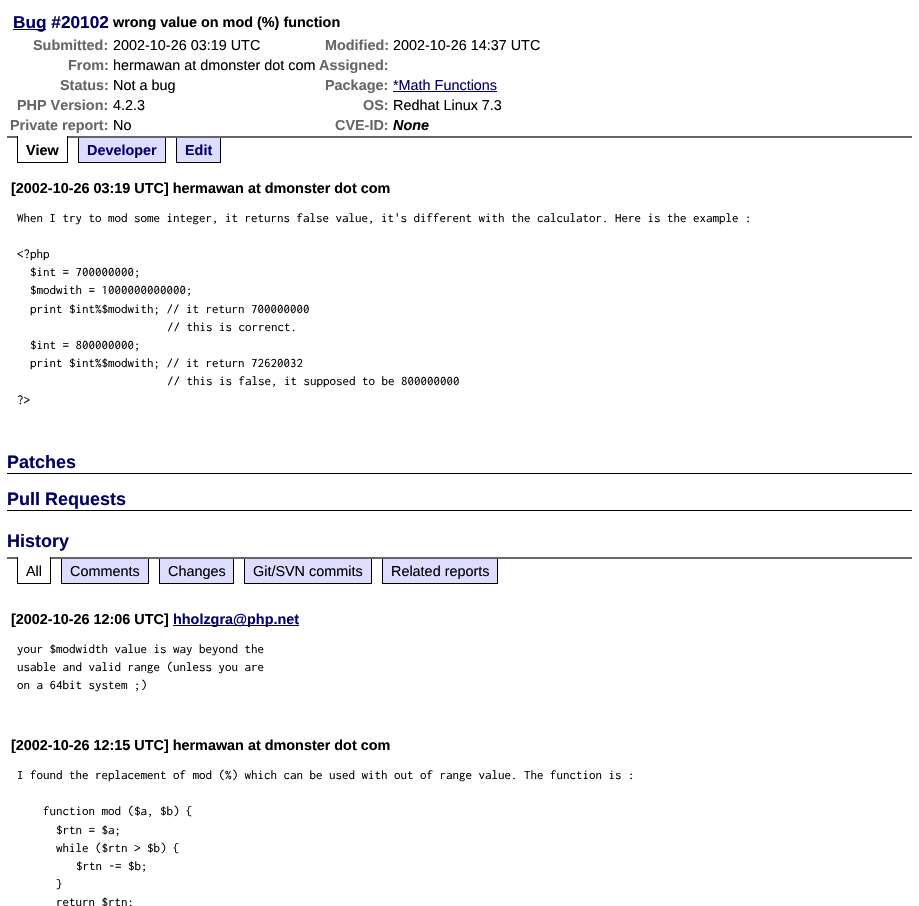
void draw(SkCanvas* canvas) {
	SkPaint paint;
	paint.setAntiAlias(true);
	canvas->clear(0xffffffff);
	paint.setColor(0xff666666);
	canvas->drawRect(SkRect::MakeXYWH(7, 136, 905, 2), paint);
	paint.setColor(0xff000066);
	canvas->drawRect(SkRect::MakeXYWH(13, 29, 33, 1), paint);
	SkFont f1(fontMgr->matchFamilyStyle("Liberation Sans", SkFontStyle::Bold()), 17.25);
	f1.setSubpixel(true);
	canvas->drawString("Bug #20102", 13, 28, f1, paint);
	SkFont f2(fontMgr->matchFamilyStyle("Liberation Sans", SkFontStyle::Bold()), 14.4);
	f2.setSubpixel(true);
	paint.setColor(0xff000000);
	canvas->drawString("wrong value on mod (%) function", 113, 27, f2, paint);
	paint.setColor(0xff666666);
	canvas->drawString("Submitted:", 33, 50, f2, paint);
	SkFont f3(fontMgr->matchFamilyStyle("Liberation Sans", SkFontStyle::Normal()), 14.4);
	f3.setSubpixel(true);
	paint.setColor(0xff000000);
	canvas->drawString("2002-10-26 03:19 UTC", 113, 50, f3, paint);
	paint.setColor(0xff666666);
	canvas->drawString("Modified:", 325, 50, f2, paint);
	paint.setColor(0xff000000);
	canvas->drawString("2002-10-26 14:37 UTC", 393, 50, f3, paint);
	paint.setColor(0xff666666);
	canvas->drawString("From:", 68, 70, f2, paint);
	paint.setColor(0xff000000);
	canvas->drawString("hermawan at dmonster dot com", 113, 70, f3, paint);
	paint.setColor(0xff666666);
	canvas->drawString("Assigned:", 319, 70, f2, paint);
	canvas->drawString("Status:", 60, 90, f2, paint);
	paint.setColor(0xff000000);
	canvas->drawString("Not a bug", 113, 90, f3, paint);
	paint.setColor(0xff666666);
	canvas->drawString("Package:", 325, 90, f2, paint);
	paint.setColor(0xff000066);
	canvas->drawString("*Math Functions", 393, 90, f3, paint);
	canvas->drawRect(SkRect::MakeXYWH(393, 91, 104, 1), paint);
	paint.setColor(0xff666666);
	canvas->drawString("PHP Version:", 17, 110, f2, paint);
	paint.setColor(0xff000000);
	canvas->drawString("4.2.3", 113, 110, f3, paint);
	paint.setColor(0xff666666);
	canvas->drawString("OS:", 363, 110, f2, paint);
	paint.setColor(0xff000000);
	canvas->drawString("Redhat Linux 7.3", 393, 110, f3, paint);
	paint.setColor(0xff666666);
	canvas->drawString("Private report:", 10, 130, f2, paint);
	paint.setColor(0xff000000);
	canvas->drawString("No", 113, 130, f3, paint);
	paint.setColor(0xff666666);
	canvas->drawString("CVE-ID:", 335, 130, f2, paint);
	SkFont f4(fontMgr->matchFamilyStyle("Liberation Sans", SkFontStyle::BoldItalic()), 14.4);
	f4.setSubpixel(true);
	paint.setColor(0xff000000);
	canvas->drawString("None", 393, 130, f4, paint);
	paint.setColor(0xffffffff);
	canvas->drawRect(SkRect::MakeXYWH(18, 136, 49, 2), paint);
	paint.setColor(0xff000000);
	canvas->drawRect(SkRect::MakeXYWH(67, 136, 1, 27), paint);
	canvas->drawRect(SkRect::MakeXYWH(17, 162, 51, 1), paint);
	canvas->drawRect(SkRect::MakeXYWH(17, 136, 1, 27), paint);
	canvas->drawString("View", 26, 155, f2, paint);
	paint.setColor(0xffddddff);
	canvas->drawRect(SkRect::MakeXYWH(79, 138, 86, 24), paint);
	paint.setColor(0xff000000);
	canvas->drawRect(SkRect::MakeXYWH(165, 138, 1, 25), paint);
	canvas->drawRect(SkRect::MakeXYWH(78, 162, 88, 1), paint);
	canvas->drawRect(SkRect::MakeXYWH(78, 138, 1, 25), paint);
	paint.setColor(0xff000066);
	canvas->drawString("Developer", 87, 155, f2, paint);
	paint.setColor(0xffddddff);
	canvas->drawRect(SkRect::MakeXYWH(177, 138, 43, 24), paint);
	paint.setColor(0xff000000);
	canvas->drawRect(SkRect::MakeXYWH(220, 138, 1, 25), paint);
	canvas->drawRect(SkRect::MakeXYWH(176, 162, 45, 1), paint);
	canvas->drawRect(SkRect::MakeXYWH(176, 138, 1, 25), paint);
	paint.setColor(0xff000066);
	canvas->drawString("Edit", 185, 155, f2, paint);
	paint.setColor(0xff000000);
	canvas->drawString("[2002-10-26 03:19 UTC] hermawan at dmonster dot com", 11, 193, f2, paint);
	SkFont f5(fontMgr->matchFamilyStyle("Inconsolata", SkFontStyle::Normal()), 13);
	f5.setSubpixel(true);
	canvas->drawString("When I try to mod some integer, it returns false value, it's different with the calculator. Here is the example :", 17, 222, f5, paint);
	canvas->drawString("<?php", 17, 258, f5, paint);
	canvas->drawString("$int = 700000000;", 30, 276, f5, paint);
	canvas->drawString("$modwith = 1000000000000;", 30, 294, f5, paint);
	canvas->drawString("print $int%$modwith; // it return 700000000", 30, 313, f5, paint);
	canvas->drawString("// this is correnct.", 167, 331, f5, paint);
	canvas->drawString("$int = 800000000;", 30, 349, f5, paint);
	canvas->drawString("print $int%$modwith; // it return 72620032", 30, 367, f5, paint);
	canvas->drawString("// this is false, it supposed to be 800000000", 167, 385, f5, paint);
	canvas->drawString("?>", 17, 404, f5, paint);
	canvas->drawRect(SkRect::MakeXYWH(7, 473, 905, 1), paint);
	SkFont f6(fontMgr->matchFamilyStyle("Liberation Sans", SkFontStyle::Bold()), 18);
	f6.setSubpixel(true);
	paint.setColor(0xff000066);
	canvas->drawString("Patches", 7, 468, f6, paint);
	paint.setColor(0xff000000);
	canvas->drawRect(SkRect::MakeXYWH(7, 510, 905, 1), paint);
	paint.setColor(0xff000066);
	canvas->drawString("Pull Requests", 7, 505, f6, paint);
	paint.setColor(0xff666666);
	canvas->drawRect(SkRect::MakeXYWH(7, 557, 905, 2), paint);
	paint.setColor(0xff000066);
	canvas->drawString("History", 7, 547, f6, paint);
	paint.setColor(0xffffffff);
	canvas->drawRect(SkRect::MakeXYWH(18, 557, 32, 2), paint);
	paint.setColor(0xff000000);
	canvas->drawRect(SkRect::MakeXYWH(50, 557, 1, 27), paint);
	canvas->drawRect(SkRect::MakeXYWH(17, 583, 34, 1), paint);
	canvas->drawRect(SkRect::MakeXYWH(17, 557, 1, 27), paint);
	canvas->drawString("All", 26, 576, f3, paint);
	paint.setColor(0xffddddff);
	canvas->drawRect(SkRect::MakeXYWH(62, 559, 86, 24), paint);
	paint.setColor(0xff000000);
	canvas->drawRect(SkRect::MakeXYWH(148, 559, 1, 25), paint);
	canvas->drawRect(SkRect::MakeXYWH(61, 583, 88, 1), paint);
	canvas->drawRect(SkRect::MakeXYWH(61, 559, 1, 25), paint);
	canvas->drawString("Comments", 70, 576, f3, paint);
	paint.setColor(0xffddddff);
	canvas->drawRect(SkRect::MakeXYWH(160, 559, 73, 24), paint);
	paint.setColor(0xff000000);
	canvas->drawRect(SkRect::MakeXYWH(233, 559, 1, 25), paint);
	canvas->drawRect(SkRect::MakeXYWH(159, 583, 75, 1), paint);
	canvas->drawRect(SkRect::MakeXYWH(159, 559, 1, 25), paint);
	canvas->drawString("Changes", 168, 576, f3, paint);
	paint.setColor(0xffddddff);
	canvas->drawRect(SkRect::MakeXYWH(245, 559, 126, 24), paint);
	paint.setColor(0xff000000);
	canvas->drawRect(SkRect::MakeXYWH(371, 559, 1, 25), paint);
	canvas->drawRect(SkRect::MakeXYWH(244, 583, 128, 1), paint);
	canvas->drawRect(SkRect::MakeXYWH(244, 559, 1, 25), paint);
	canvas->drawString("Git/SVN commits", 253, 576, f3, paint);
	paint.setColor(0xffddddff);
	canvas->drawRect(SkRect::MakeXYWH(383, 559, 114, 24), paint);
	paint.setColor(0xff000000);
	canvas->drawRect(SkRect::MakeXYWH(497, 559, 1, 25), paint);
	canvas->drawRect(SkRect::MakeXYWH(382, 583, 116, 1), paint);
	canvas->drawRect(SkRect::MakeXYWH(382, 559, 1, 25), paint);
	canvas->drawString("Related reports", 391, 576, f3, paint);
	canvas->drawString("[2002-10-26 12:06 UTC]", 11, 624, f2, paint);
	paint.setColor(0xff000066);
	canvas->drawRect(SkRect::MakeXYWH(173, 625, 126, 1), paint);
	canvas->drawString("hholzgra@php.net", 173, 624, f2, paint);
	paint.setColor(0xff000000);
	canvas->drawString("your $modwidth value is way beyond the", 17, 653, f5, paint);
	canvas->drawString("usable and valid range (unless you are", 17, 671, f5, paint);
	canvas->drawString("on a 64bit system ;)", 17, 689, f5, paint);
	canvas->drawString("[2002-10-26 12:15 UTC] hermawan at dmonster dot com", 11, 750, f2, paint);
	canvas->drawString("I found the replacement of mod (%) which can be used with out of range value. The function is :", 17, 779, f5, paint);
	canvas->drawString("function mod ($a, $b) {", 43, 815, f5, paint);
	canvas->drawString("$rtn = $a;", 56, 834, f5, paint);
	canvas->drawString("while ($rtn > $b) {", 56, 852, f5, paint);
	canvas->drawString("$rtn -= $b;", 76, 870, f5, paint);
	canvas->drawString("}", 56, 888, f5, paint);
	canvas->drawString("return $rtn;", 56, 906, f5, paint);
}
